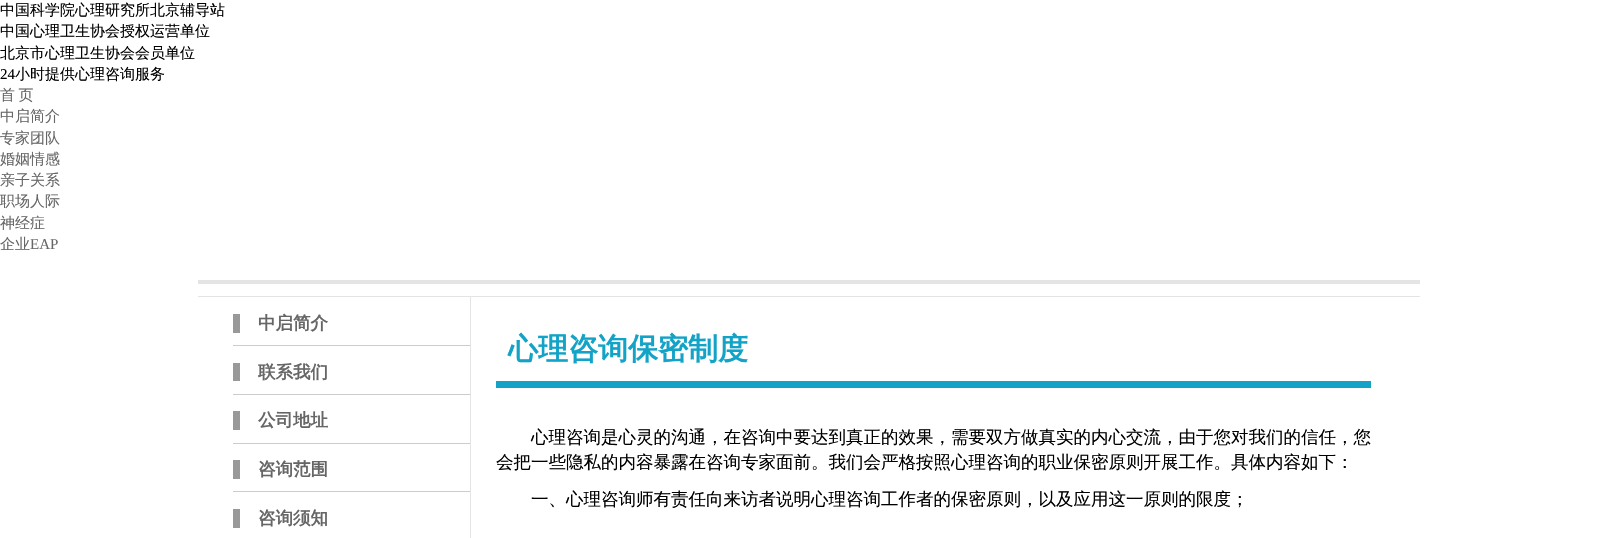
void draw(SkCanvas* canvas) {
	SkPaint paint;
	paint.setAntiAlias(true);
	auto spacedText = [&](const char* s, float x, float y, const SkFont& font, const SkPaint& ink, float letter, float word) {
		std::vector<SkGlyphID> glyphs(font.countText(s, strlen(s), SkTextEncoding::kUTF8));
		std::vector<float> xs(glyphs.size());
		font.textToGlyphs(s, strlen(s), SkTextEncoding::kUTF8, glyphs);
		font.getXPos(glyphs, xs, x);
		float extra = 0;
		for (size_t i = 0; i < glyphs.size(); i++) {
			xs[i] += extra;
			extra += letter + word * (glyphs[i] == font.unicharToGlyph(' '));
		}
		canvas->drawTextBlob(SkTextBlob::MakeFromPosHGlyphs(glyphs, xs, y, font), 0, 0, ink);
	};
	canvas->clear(0xffffffff);
	SkFont f1(fontMgr->matchFamilyStyle("WenQuanYi Zen Hei", SkFontStyle(500, SkFontStyle::kNormal_Width, SkFontStyle::kUpright_Slant)), 15);
	f1.setSubpixel(true);
	paint.setColor(0xff000000);
	canvas->drawString("中国科学院心理研究所北京辅导站", 0, 15, f1, paint);
	canvas->drawString("中国心理卫生协会授权运营单位", 0, 36, f1, paint);
	canvas->drawString("北京市心理卫生协会会员单位", 0, 58, f1, paint);
	SkFont f2(fontMgr->matchFamilyStyle("Liberation Serif", SkFontStyle::Normal()), 15);
	f2.setSubpixel(true);
	canvas->drawString("24", 0, 79, f2, paint);
	canvas->drawString("小时提供心理咨询服务", 15, 79, f1, paint);
	paint.setColor(0xff666666);
	spacedText("首 页", 0, 100, f1, paint, 0, -1);
	canvas->drawString("中启简介", 0, 121, f1, paint);
	canvas->drawString("专家团队", 0, 143, f1, paint);
	canvas->drawString("婚姻情感", 0, 164, f1, paint);
	canvas->drawString("亲子关系", 0, 185, f1, paint);
	canvas->drawString("职场人际", 0, 206, f1, paint);
	canvas->drawString("神经症", 0, 228, f1, paint);
	canvas->drawString("企业", 0, 249, f1, paint);
	canvas->drawString("EAP", 30, 249, f2, paint);
	paint.setColor(0xffe4e4e4);
	canvas->drawRect(SkRect::MakeXYWH(198, 280, 1222, 4), paint);
	canvas->drawRect(SkRect::MakeXYWH(198, 296, 1222, 1), paint);
	paint.setColor(0xffcccccc);
	canvas->drawRect(SkRect::MakeXYWH(233, 345, 237, 1), paint);
	SkFont f3(fontMgr->matchFamilyStyle("WenQuanYi Zen Hei", SkFontStyle::Bold()), 17.5);
	f3.setSubpixel(true);
	paint.setColor(0xff666666);
	canvas->drawString("中启简介", 258, 329, f3, paint);
	paint.setColor(0xff999999);
	canvas->drawRect(SkRect::MakeXYWH(233, 314, 7, 19), paint);
	paint.setColor(0xffcccccc);
	canvas->drawRect(SkRect::MakeXYWH(233, 394, 237, 1), paint);
	paint.setColor(0xff666666);
	canvas->drawString("联系我们", 258, 378, f3, paint);
	paint.setColor(0xff999999);
	canvas->drawRect(SkRect::MakeXYWH(233, 363, 7, 18), paint);
	paint.setColor(0xffcccccc);
	canvas->drawRect(SkRect::MakeXYWH(233, 443, 237, 1), paint);
	paint.setColor(0xff666666);
	canvas->drawString("公司地址", 258, 426, f3, paint);
	paint.setColor(0xff999999);
	canvas->drawRect(SkRect::MakeXYWH(233, 411, 7, 19), paint);
	paint.setColor(0xffcccccc);
	canvas->drawRect(SkRect::MakeXYWH(233, 491, 237, 1), paint);
	paint.setColor(0xff666666);
	canvas->drawString("咨询范围", 258, 475, f3, paint);
	paint.setColor(0xff999999);
	canvas->drawRect(SkRect::MakeXYWH(233, 460, 7, 19), paint);
	paint.setColor(0xff666666);
	canvas->drawString("咨询须知", 258, 524, f3, paint);
	paint.setColor(0xff999999);
	canvas->drawRect(SkRect::MakeXYWH(233, 509, 7, 19), paint);
	paint.setColor(0xffe4e4e4);
	canvas->drawRect(SkRect::MakeXYWH(470, 296, 1, 242), paint);
	SkFont f4(fontMgr->matchFamilyStyle("WenQuanYi Zen Hei", SkFontStyle::Bold()), 30);
	f4.setSubpixel(true);
	paint.setColor(0xff13a3c7);
	canvas->drawString("心理咨询保密制度", 508, 359, f4, paint);
	canvas->drawRect(SkRect::MakeXYWH(496, 381, 875, 7), paint);
	SkFont f5(fontMgr->matchFamilyStyle("WenQuanYi Zen Hei", SkFontStyle(500, SkFontStyle::kNormal_Width, SkFontStyle::kUpright_Slant)), 17.5);
	f5.setSubpixel(true);
	paint.setColor(0xff000000);
	canvas->drawString("心理咨询是心灵的沟通，在咨询中要达到真正的效果，需要双方做真实的内心交流，由于您对我们的信任，您", 531, 443, f5, paint);
	canvas->drawString("会把一些隐私的内容暴露在咨询专家面前。我们会严格按照心理咨询的职业保密原则开展工作。具体内容如下：", 496, 468, f5, paint);
	canvas->drawString("一、心理咨询师有责任向来访者说明心理咨询工作者的保密原则，以及应用这一原则的限度；", 531, 505, f5, paint);
}
